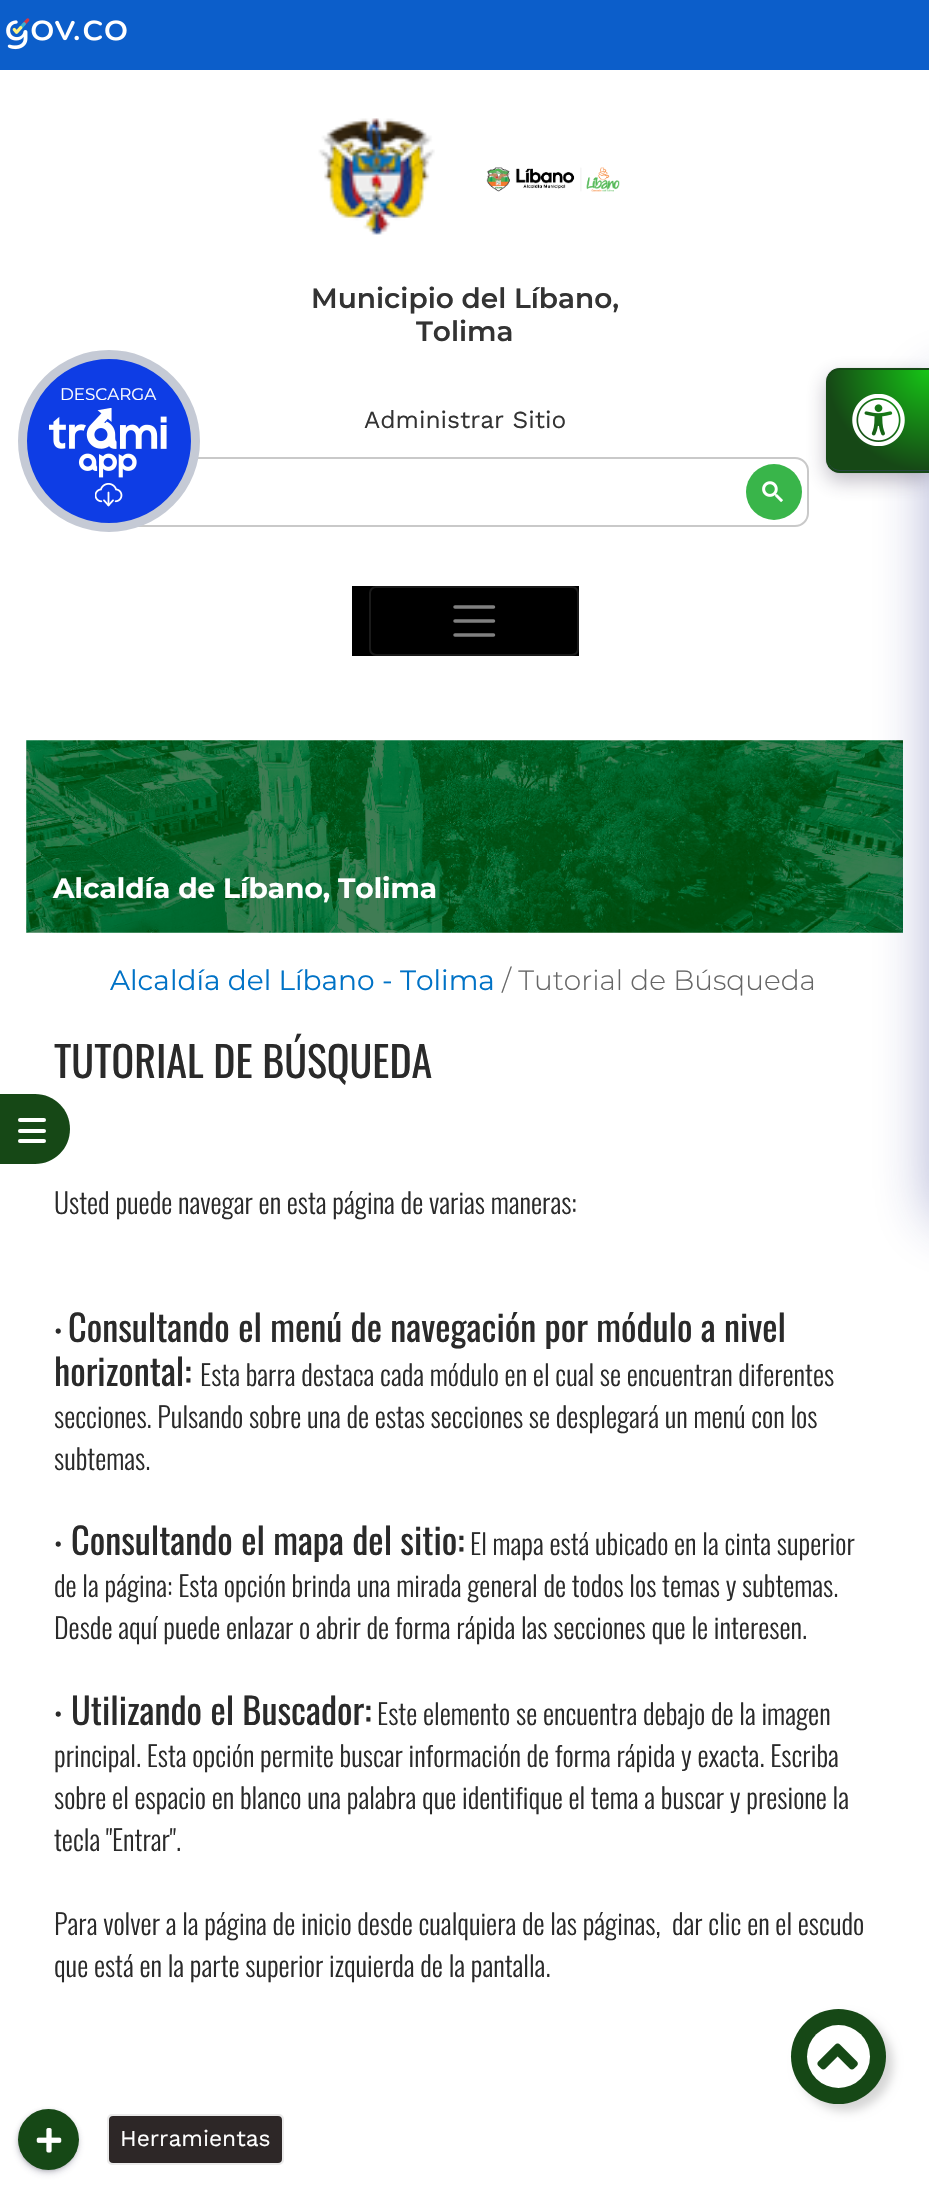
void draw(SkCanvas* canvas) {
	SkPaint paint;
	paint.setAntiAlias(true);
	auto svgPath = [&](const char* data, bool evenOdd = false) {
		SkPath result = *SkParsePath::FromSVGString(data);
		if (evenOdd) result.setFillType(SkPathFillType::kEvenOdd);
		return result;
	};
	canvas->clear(0xffffffff);
	paint.setColor(0xff0c5eca);
	canvas->drawRect(SkRect::MakeXYWH(0, 0, 929, 70), paint);
	canvas->drawImageRect(SkImages::DeferredFromEncodedData(SkData::MakeFromFileName("img1.png")), SkRect::MakeXYWH(6, 18, 121, 32), SkSamplingOptions());
	paint.setStroke(true);
	paint.setStrokeWidth(2);
	paint.setColor(0xffc9c9c9);
	canvas->drawRoundRect(SkRect::MakeXYWH(117, 458, 691, 68), 13, 13, paint);
	paint.setStroke(false);
	paint.setColor(0xff0e3de5);
	canvas->drawCircle(109, 441, 86.5, paint);
	paint.setStroke(true);
	paint.setStrokeWidth(9);
	paint.setColor(0xffc5cad5);
	canvas->drawCircle(109, 441, 86.5, paint);
	SkFont f1(fontMgr->matchFamilyStyle("Montserrat", SkFontStyle::Normal()), 16.75);
	f1.setSubpixel(true);
	paint.setStroke(false);
	paint.setColor(0xffffffff);
	canvas->drawString("DESCARGA", 60, 400, f1, paint);
	canvas->drawImageRect(SkImages::DeferredFromEncodedData(SkData::MakeFromFileName("img2.png")), SkRect::MakeXYWH(49, 408, 118, 70), SkSamplingOptions());
	canvas->drawImageRect(SkImages::DeferredFromEncodedData(SkData::MakeFromFileName("img3.png")), SkRect::MakeXYWH(95, 483, 28, 24), SkSamplingOptions());
	canvas->drawImageRect(SkImages::DeferredFromEncodedData(SkData::MakeFromFileName("img4.png")), SkRect::MakeXYWH(318, 118, 117, 117), SkSamplingOptions());
	canvas->drawImageRect(SkImages::DeferredFromEncodedData(SkData::MakeFromFileName("img5.png")), SkRect::MakeXYWH(486, 167, 134, 25), SkSamplingOptions());
	SkFont f2(fontMgr->matchFamilyStyle("Montserrat", SkFontStyle(600, SkFontStyle::kNormal_Width, SkFontStyle::kUpright_Slant)), 28);
	f2.setSubpixel(true);
	paint.setColor(0xff333333);
	canvas->drawString("Municipio del Líbano,", 311, 308, f2, paint);
	canvas->drawString("Tolima", 416, 341, f2, paint);
	SkFont f3(fontMgr->matchFamilyStyle("Work Sans", SkFontStyle::Normal()), 24.5);
	f3.setSubpixel(true);
	canvas->drawString("Administrar Sitio", 364, 428, f3, paint);
	paint.setColor(0xff39b54a);
	canvas->drawCircle(774, 492, 28, paint);
	canvas->drawImageRect(SkImages::DeferredFromEncodedData(SkData::MakeFromFileName("img6.png")), SkRect::MakeXYWH(762, 481, 21, 21), SkSamplingOptions());
	paint.setColor(0xff000000);
	canvas->drawRect(SkRect::MakeXYWH(352, 586, 227, 70), paint);
	paint.setStroke(true);
	paint.setStrokeWidth(2);
	paint.setColor(0xff1a1a1a);
	canvas->drawRoundRect(SkRect::MakeXYWH(370, 587, 208, 68), 6, 6, paint);
	paint.setStrokeWidth(3.5);
	paint.setStrokeCap(SkPaint::kRound_Cap);
	paint.setColor(0xff808080);
	canvas->drawPath(svgPath("M455 607H493.5M455 621H493.5M455 635H493.5"), paint);
	paint.setStroke(false);
	paint.setColor(0xff164816);
	canvas->drawPath(svgPath("M0 1094H35C54.5 1094 70 1109.5 70 1129C70 1148.5 54.5 1164 35 1164H0Z"), paint);
	paint.setColor(0xffffffff);
	canvas->drawRoundRect(SkRect::MakeXYWH(18, 1118, 28, 4), 2, 2, paint);
	canvas->drawRoundRect(SkRect::MakeXYWH(18, 1129, 28, 4), 2, 2, paint);
	canvas->drawRoundRect(SkRect::MakeXYWH(18, 1139, 28, 4), 2, 2, paint);
	canvas->drawImageRect(SkImages::DeferredFromEncodedData(SkData::MakeFromFileName("img7.png")), SkRect::MakeXYWH(26, 740, 877, 193), SkSamplingOptions());
	SkFont f4(fontMgr->matchFamilyStyle("Montserrat", SkFontStyle::Bold()), 28);
	f4.setSubpixel(true);
	canvas->drawString("Alcaldía de Líbano, Tolima", 53, 898, f4, paint);
	SkFont f5(fontMgr->matchFamilyStyle("Montserrat", SkFontStyle::Normal()), 28);
	f5.setSubpixel(true);
	paint.setColor(0xff0072c6);
	canvas->drawString("Alcaldía del Líbano - Tolima", 110, 990, f5, paint);
	SkFont f6(fontMgr->matchFamilyStyle("Montserrat", SkFontStyle(300, SkFontStyle::kNormal_Width, SkFontStyle::kUpright_Slant)), 28);
	f6.setSubpixel(true);
	paint.setColor(0xff666666);
	canvas->drawString("/ Tutorial de Búsqueda", 502, 990, f6, paint);
	SkFont f7(fontMgr->matchFamilyStyle("Oswald", SkFontStyle::Normal()), 42);
	f7.setSubpixel(true);
	paint.setColor(0xff2a2a2a);
	canvas->drawString("TUTORIAL DE BÚSQUEDA", 54, 1078, f7, paint);
	SkFont f8(fontMgr->matchFamilyStyle("Oswald", SkFontStyle(300, SkFontStyle::kNormal_Width, SkFontStyle::kUpright_Slant)), 28);
	f8.setSubpixel(true);
	canvas->drawString("Usted puede navegar en esta página de varias maneras:", 54, 1214, f8, paint);
	canvas->drawString("•", 54, 1342, f8, paint);
	SkFont f9(fontMgr->matchFamilyStyle("Oswald", SkFontStyle::Normal()), 36.4);
	f9.setSubpixel(true);
	canvas->drawString("Consultando el menú de navegación por módulo a nivel", 68, 1342, f9, paint);
	canvas->drawString("horizontal:", 54, 1386, f9, paint);
	canvas->drawString("Esta barra destaca cada módulo en el cual se encuentran diferentes", 200, 1386, f8, paint);
	canvas->drawString("secciones. Pulsando sobre una de estas secciones se desplegará un menú con los", 54, 1428, f8, paint);
	canvas->drawString("subtemas.", 54, 1470, f8, paint);
	canvas->drawString("•", 54, 1555, f8, paint);
	canvas->drawString("Consultando el mapa del sitio:", 71, 1555, f9, paint);
	canvas->drawString("El mapa está ubicado en la cinta superior", 470, 1555, f8, paint);
	canvas->drawString("de la página: Esta opción brinda una mirada general de todos los temas y subtemas.", 54, 1597, f8, paint);
	canvas->drawString("Desde aquí puede enlazar o abrir de forma rápida las secciones que le interesen.", 54, 1639, f8, paint);
	canvas->drawString("•", 54, 1725, f8, paint);
	canvas->drawString("Utilizando el Buscador:", 71, 1725, f9, paint);
	canvas->drawString("Este elemento se encuentra debajo de la imagen", 377, 1725, f8, paint);
	canvas->drawString("principal. Esta opción permite buscar información de forma rápida y exacta. Escriba", 54, 1767, f8, paint);
	canvas->drawString("sobre el espacio en blanco una palabra que identifique el tema a buscar y presione la", 54, 1809, f8, paint);
	canvas->drawString("tecla \"Entrar\".", 54, 1851, f8, paint);
	canvas->drawString("Para volver a la página de inicio desde cualquiera de las páginas,  dar clic en el escudo", 54, 1935, f8, paint);
	canvas->drawString("que está en la parte superior izquierda de la pantalla.", 54, 1977, f8, paint);
	paint.setColor(0x29000000);
	paint.setMaskFilter(SkMaskFilter::MakeBlur(kNormal_SkBlurStyle, 5));
	canvas->drawRoundRect(SkRect::MakeXYWH(798, 2016, 95, 95), 47.5, 47.5, paint);
	paint.setMaskFilter(nullptr);
	paint.setColor(0xff164816);
	canvas->drawCircle(838.5, 2056.5, 47.5, paint);
	paint.setColor(0xffffffff);
	canvas->drawCircle(838.5, 2056.5, 31.5, paint);
	canvas->drawImageRect(SkImages::DeferredFromEncodedData(SkData::MakeFromFileName("img8.png")), SkRect::MakeXYWH(817, 2043, 41, 27), SkSamplingOptions());
	paint.setColor(0x4d000000);
	paint.setMaskFilter(SkMaskFilter::MakeBlur(kNormal_SkBlurStyle, 2.5));
	canvas->drawRoundRect(SkRect::MakeXYWH(19, 2112, 58, 58), 29, 29, paint);
	paint.setMaskFilter(nullptr);
	paint.setColor(0x4032325d);
	paint.setMaskFilter(SkMaskFilter::MakeBlur(kNormal_SkBlurStyle, 4.5));
	canvas->drawRoundRect(SkRect::MakeXYWH(19, 2114, 58, 58), 29, 29, paint);
	paint.setMaskFilter(nullptr);
	paint.setColor(0xff164816);
	canvas->drawCircle(48.5, 2139.5, 30.5, paint);
	canvas->drawImageRect(SkImages::DeferredFromEncodedData(SkData::MakeFromFileName("img9.png")), SkRect::MakeXYWH(36, 2128, 26, 25), SkSamplingOptions());
	paint.setStroke(true);
	paint.setStrokeWidth(2);
	paint.setStrokeCap(SkPaint::kButt_Cap);
	paint.setColor(0xffebebeb);
	canvas->drawRoundRect(SkRect::MakeXYWH(108, 2115, 175, 49), 4, 4, paint);
	paint.setStroke(false);
	paint.setColor(0xff2d2727);
	canvas->drawRoundRect(SkRect::MakeXYWH(109, 2116, 173, 47), 4, 4, paint);
	SkFont f10(fontMgr->matchFamilyStyle("Work Sans", SkFontStyle::Normal()), 22.75);
	f10.setSubpixel(true);
	paint.setColor(0xffffffff);
	canvas->drawString("Herramientas", 120, 2146, f10, paint);
	paint.setColor(0x5e1f2687);
	paint.setMaskFilter(SkMaskFilter::MakeBlur(kNormal_SkBlurStyle, 28));
	canvas->drawRoundRect(SkRect::MakeXYWH(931, 382, 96, 838), 14, 14, paint);
	paint.setMaskFilter(nullptr);
	paint.setColor(0x4d2d2342);
	paint.setMaskFilter(SkMaskFilter::MakeBlur(kNormal_SkBlurStyle, 10));
	canvas->drawRoundRect(SkRect::MakeXYWH(826, 376, 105, 105), 14, 14, paint);
	paint.setMaskFilter(nullptr);
	paint.setColor(0x662d2342);
	paint.setMaskFilter(SkMaskFilter::MakeBlur(kNormal_SkBlurStyle, 0.5));
	canvas->drawRoundRect(SkRect::MakeXYWH(826, 368, 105, 105), 14, 14, paint);
	paint.setMaskFilter(nullptr);
	canvas->save();
	canvas->clipPath(svgPath("M840 368H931V473H840C832.5 473 826 466.5 826 459V382C826 374.5 832.5 368 840 368Z"), true);
	{
		const SkColor colors[] = {0xff16c616, 0xff164816};
		const float stops[] = {0, 1};
		paint.setShader(SkGradientShader::MakeRadial({929, 369}, 102, colors, stops, 2, SkTileMode::kClamp));
		paint.setAlpha(255);
	}
	canvas->drawRect(SkRect::MakeXYWH(828, 369, 101, 102), paint);
	canvas->restore();
	paint.setShader(nullptr);
	paint.setColor(0xff284543);
	canvas->drawPath(svgPath("M828 458V459C828 466 833 471 840 471H929V470H840C833 470 828 465 828 458Z"), paint);
	paint.setStroke(true);
	paint.setColor(0xff164816);
	canvas->drawPath(svgPath("M840 369H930V472H840C833 472 827 466 827 459V382C827 375 833 369 840 369Z"), paint);
	canvas->drawImageRect(SkImages::DeferredFromEncodedData(SkData::MakeFromFileName("img10.png")), SkRect::MakeXYWH(852, 394, 53, 52), SkSamplingOptions());
}
